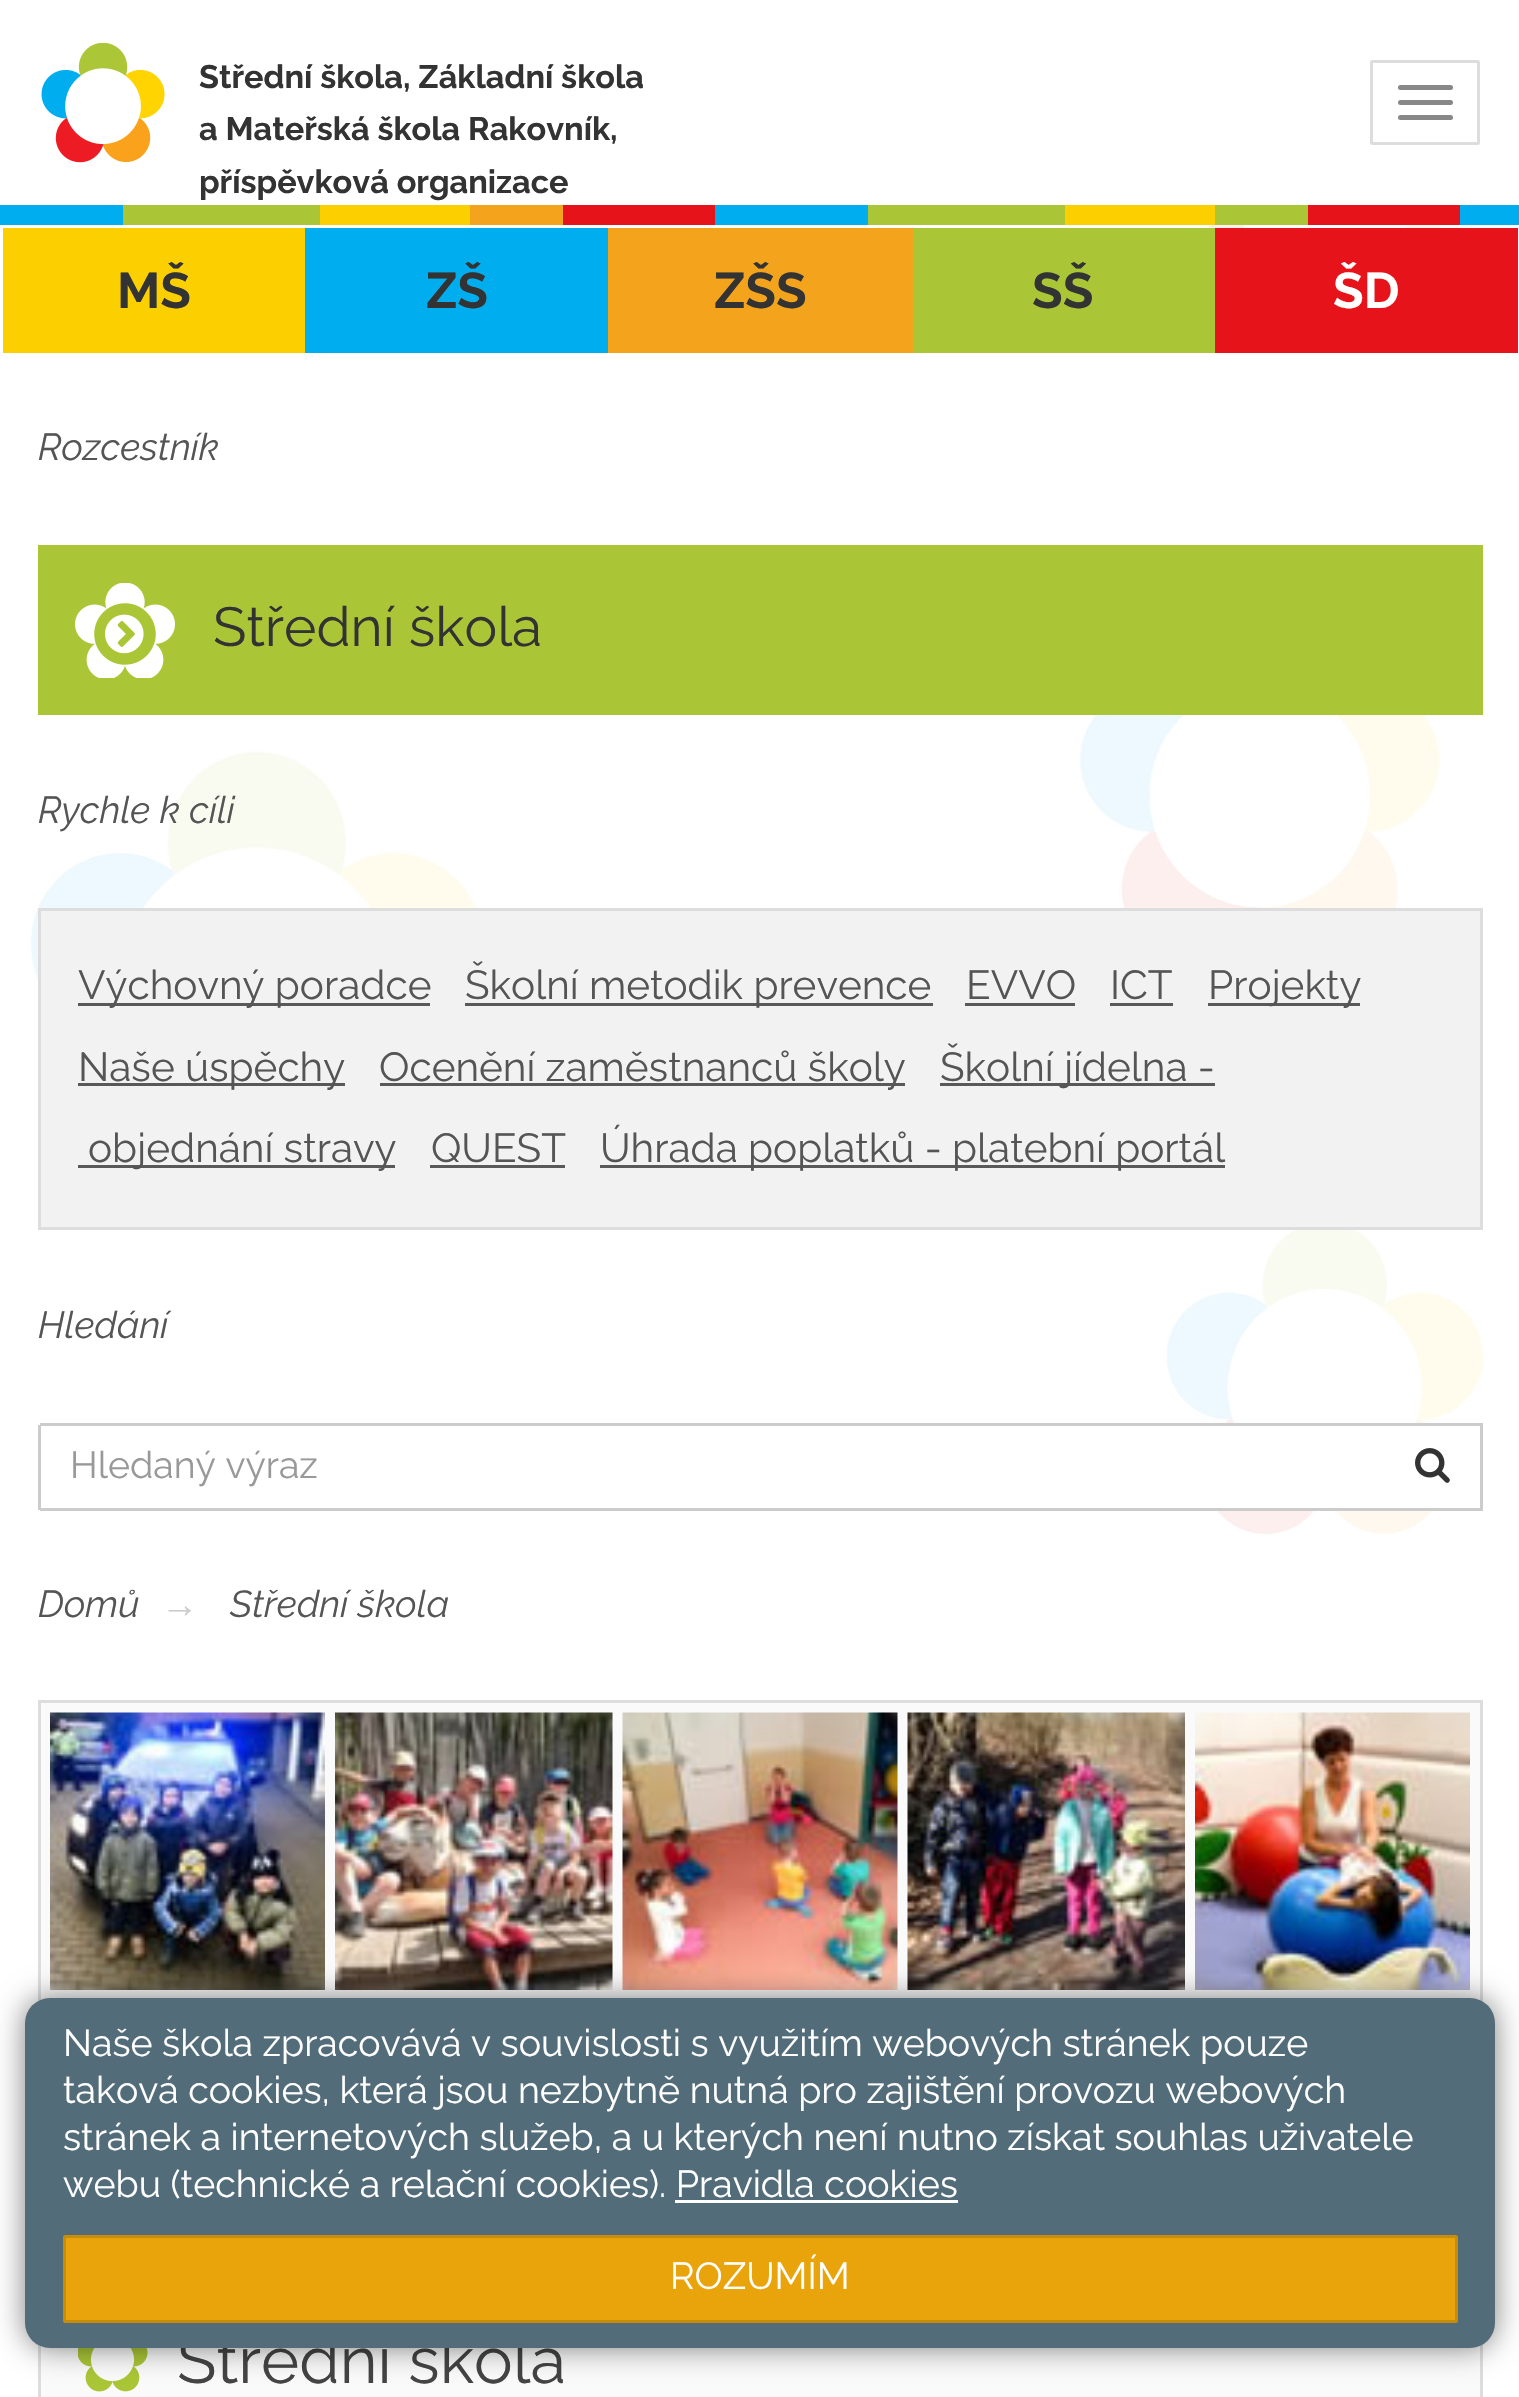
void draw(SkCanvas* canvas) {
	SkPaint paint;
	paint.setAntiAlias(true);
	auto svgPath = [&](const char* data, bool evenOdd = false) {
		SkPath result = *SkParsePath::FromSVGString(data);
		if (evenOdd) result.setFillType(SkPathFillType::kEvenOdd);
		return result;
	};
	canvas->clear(0xffffffff);
	canvas->drawImageRect(SkImages::DeferredFromEncodedData(SkData::MakeFromFileName("img1.png")), SkRect::MakeXYWH(31, 225, 1453, 2172), SkSamplingOptions());
	canvas->drawImageRect(SkImages::DeferredFromEncodedData(SkData::MakeFromFileName("img2.png")), SkRect::MakeXYWH(41, 43, 124, 120), SkSamplingOptions());
	SkFont f1(fontMgr->matchFamilyStyle("Raleway", SkFontStyle::Bold()), 32.5);
	f1.setSubpixel(true);
	paint.setColor(0xff333333);
	canvas->drawString("Střední škola, Základní škola", 199, 88, f1, paint);
	canvas->drawString("a Mateřská škola Rakovník,", 199, 140, f1, paint);
	canvas->drawString("příspěvková organizace", 199, 193, f1, paint);
	paint.setStroke(true);
	paint.setStrokeWidth(3);
	paint.setColor(0xffdddddd);
	canvas->drawRoundRect(SkRect::MakeXYWH(1371.5, 61.5, 107, 82), 1, 1, paint);
	paint.setStroke(false);
	paint.setColor(0xff888888);
	canvas->drawRoundRect(SkRect::MakeXYWH(1398, 85, 55, 5), 2.5, 2.5, paint);
	canvas->drawRoundRect(SkRect::MakeXYWH(1398, 100, 55, 5), 2.5, 2.5, paint);
	canvas->drawRoundRect(SkRect::MakeXYWH(1398, 115, 55, 5), 2.5, 2.5, paint);
	paint.setColor(0xff00adee);
	canvas->drawRect(SkRect::MakeXYWH(0, 205, 123, 20), paint);
	paint.setColor(0xffaac636);
	canvas->drawRect(SkRect::MakeXYWH(123, 205, 197, 20), paint);
	paint.setColor(0xfffbcf00);
	canvas->drawRect(SkRect::MakeXYWH(320, 205, 150, 20), paint);
	paint.setColor(0xfff3a41c);
	canvas->drawRect(SkRect::MakeXYWH(470, 205, 93, 20), paint);
	paint.setColor(0xffe7131a);
	canvas->drawRect(SkRect::MakeXYWH(563, 205, 152, 20), paint);
	paint.setColor(0xff00adee);
	canvas->drawRect(SkRect::MakeXYWH(715, 205, 153, 20), paint);
	paint.setColor(0xffaac636);
	canvas->drawRect(SkRect::MakeXYWH(868, 205, 197, 20), paint);
	paint.setColor(0xfffbcf00);
	canvas->drawRect(SkRect::MakeXYWH(1065, 205, 150, 20), paint);
	paint.setColor(0xffaac636);
	canvas->drawRect(SkRect::MakeXYWH(1215, 205, 93, 20), paint);
	paint.setColor(0xffe7131a);
	canvas->drawRect(SkRect::MakeXYWH(1308, 205, 152, 20), paint);
	paint.setColor(0xff00adee);
	canvas->drawRect(SkRect::MakeXYWH(1460, 205, 59, 20), paint);
	paint.setColor(0xfffbcf00);
	canvas->drawRect(SkRect::MakeXYWH(3, 228, 302, 125), paint);
	SkFont f2(fontMgr->matchFamilyStyle("Raleway", SkFontStyle::Bold()), 50);
	f2.setSubpixel(true);
	paint.setColor(0xff333333);
	canvas->drawString("MŠ", 117, 308, f2, paint);
	paint.setColor(0xff00adee);
	canvas->drawRect(SkRect::MakeXYWH(305, 228, 303, 125), paint);
	paint.setColor(0xff333333);
	canvas->drawString("ZŠ", 426, 308, f2, paint);
	paint.setColor(0xfff3a41c);
	canvas->drawRect(SkRect::MakeXYWH(608, 228, 305, 125), paint);
	paint.setColor(0xff333333);
	canvas->drawString("ZŠS", 714, 308, f2, paint);
	paint.setColor(0xffaac636);
	canvas->drawRect(SkRect::MakeXYWH(913, 228, 302, 125), paint);
	paint.setColor(0xff333333);
	canvas->drawString("SŠ", 1032, 308, f2, paint);
	paint.setColor(0xffe7131a);
	canvas->drawRect(SkRect::MakeXYWH(1215, 228, 303, 125), paint);
	paint.setColor(0xffffffff);
	canvas->drawString("ŠD", 1333, 308, f2, paint);
	SkFont f3(fontMgr->matchFamilyStyle("Raleway", SkFontStyle(100, SkFontStyle::kNormal_Width, SkFontStyle::kItalic_Slant)), 37.5);
	f3.setSubpixel(true);
	paint.setColor(0xff555555);
	canvas->drawString("Rozcestník", 38, 460, f3, paint);
	paint.setColor(0xffaac636);
	canvas->drawRect(SkRect::MakeXYWH(38, 545, 1445, 170), paint);
	canvas->drawImageRect(SkImages::DeferredFromEncodedData(SkData::MakeFromFileName("img3.png")), SkRect::MakeXYWH(75, 583, 100, 95), SkSamplingOptions());
	SkFont f4(fontMgr->matchFamilyStyle("Raleway", SkFontStyle::Normal()), 55);
	f4.setSubpixel(true);
	paint.setColor(0xff333333);
	canvas->drawString("Střední škola", 213, 646, f4, paint);
	canvas->drawImageRect(SkImages::DeferredFromEncodedData(SkData::MakeFromFileName("img4.png")), SkRect::MakeXYWH(105, 614, 39, 40), SkSamplingOptions());
	paint.setColor(0xff555555);
	canvas->drawString("Rychle k cíli", 38, 823, f3, paint);
	paint.setColor(0xfff2f2f2);
	canvas->drawRect(SkRect::MakeXYWH(39.5, 909.5, 1442, 319), paint);
	paint.setStroke(true);
	paint.setColor(0xffdddddd);
	canvas->drawRect(SkRect::MakeXYWH(39.5, 909.5, 1442, 319), paint);
	paint.setStroke(false);
	paint.setColor(0xff595959);
	canvas->drawRect(SkRect::MakeXYWH(78, 1003, 352, 3), paint);
	SkFont f5(fontMgr->matchFamilyStyle("Raleway", SkFontStyle::Normal()), 40.5);
	f5.setSubpixel(true);
	paint.setColor(0xff555555);
	canvas->drawString("Výchovný poradce", 78, 999, f5, paint);
	paint.setColor(0xff595959);
	canvas->drawRect(SkRect::MakeXYWH(465, 1003, 468, 3), paint);
	paint.setColor(0xff555555);
	canvas->drawString("Školní metodik prevence", 465, 999, f5, paint);
	canvas->drawString("EVVO", 966, 999, f5, paint);
	paint.setColor(0xff595959);
	canvas->drawRect(SkRect::MakeXYWH(965, 1003, 110, 3), paint);
	paint.setColor(0xff555555);
	canvas->drawString("ICT", 1110, 999, f5, paint);
	paint.setColor(0xff595959);
	canvas->drawRect(SkRect::MakeXYWH(1110, 1003, 63, 3), paint);
	canvas->drawRect(SkRect::MakeXYWH(1208, 1003, 152, 3), paint);
	paint.setColor(0xff555555);
	canvas->drawString("Projekty", 1208, 999, f5, paint);
	paint.setColor(0xff595959);
	canvas->drawRect(SkRect::MakeXYWH(78, 1083, 267, 3), paint);
	paint.setColor(0xff555555);
	canvas->drawString("Naše úspěchy", 78, 1081, f5, paint);
	paint.setColor(0xff595959);
	canvas->drawRect(SkRect::MakeXYWH(380, 1083, 525, 3), paint);
	paint.setColor(0xff555555);
	canvas->drawString("Ocenění zaměstnanců školy", 379, 1081, f5, paint);
	paint.setColor(0xff595959);
	canvas->drawRect(SkRect::MakeXYWH(940, 1083, 275, 3), paint);
	paint.setColor(0xff555555);
	canvas->drawString("Školní jídelna -", 940, 1081, f5, paint);
	paint.setColor(0xff595959);
	canvas->drawRect(SkRect::MakeXYWH(78, 1165, 317, 3), paint);
	paint.setColor(0xff555555);
	canvas->drawString("objednání stravy", 88, 1162, f5, paint);
	canvas->drawString("QUEST", 431, 1162, f5, paint);
	paint.setColor(0xff595959);
	canvas->drawRect(SkRect::MakeXYWH(430, 1165, 135, 3), paint);
	canvas->drawRect(SkRect::MakeXYWH(600, 1165, 625, 3), paint);
	paint.setColor(0xff555555);
	canvas->drawString("Úhrada poplatků - platební portál", 600, 1162, f5, paint);
	canvas->drawString("Hledání", 38, 1338, f3, paint);
	paint.setColor(0xffffffff);
	canvas->drawPath(svgPath("M40.5 1423H1388V1510H40.5C39 1510 38 1509 38 1507.5V1425.5C38 1424 39 1423 40.5 1423Z"), paint);
	paint.setColor(0xffcccccc);
	canvas->drawRect(SkRect::MakeXYWH(40, 1423, 1443, 3), paint);
	canvas->drawRect(SkRect::MakeXYWH(40, 1508, 1348, 3), paint);
	canvas->drawRect(SkRect::MakeXYWH(38, 1425, 3, 85), paint);
	SkFont f6(fontMgr->matchFamilyStyle("Raleway", SkFontStyle::Normal()), 37.5);
	f6.setSubpixel(true);
	paint.setColor(0xff999999);
	canvas->drawString("Hledaný výraz", 70, 1478, f6, paint);
	paint.setColor(0xffffffff);
	canvas->drawRect(SkRect::MakeXYWH(1388, 1426, 60, 82), paint);
	paint.setColor(0xffcccccc);
	canvas->drawRect(SkRect::MakeXYWH(1480, 1425, 3, 85), paint);
	canvas->drawRect(SkRect::MakeXYWH(1385, 1508, 98, 3), paint);
	canvas->drawImageRect(SkImages::DeferredFromEncodedData(SkData::MakeFromFileName("img5.png")), SkRect::MakeXYWH(1415, 1448, 35, 35), SkSamplingOptions());
	paint.setColor(0xff555555);
	canvas->drawString("Domů", 38, 1617, f3, paint);
	SkFont f7(fontMgr->matchFamilyStyle("Liberation Sans", SkFontStyle::Normal()), 37.5);
	f7.setSubpixel(true);
	paint.setColor(0xffcccccc);
	canvas->drawString("→", 161, 1617, f7, paint);
	paint.setColor(0xff555555);
	canvas->drawString("Střední škola", 230, 1617, f3, paint);
	paint.setColor(0xfffafafa);
	canvas->drawRect(SkRect::MakeXYWH(39.5, 1701.5, 1442, 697), paint);
	paint.setStroke(true);
	paint.setColor(0xffdddddd);
	canvas->drawRect(SkRect::MakeXYWH(39.5, 1701.5, 1442, 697), paint);
	canvas->drawImageRect(SkImages::DeferredFromEncodedData(SkData::MakeFromFileName("img6.png")), SkRect::MakeXYWH(50, 1712, 275, 278), SkSamplingOptions());
	canvas->drawImageRect(SkImages::DeferredFromEncodedData(SkData::MakeFromFileName("img7.png")), SkRect::MakeXYWH(335, 1712, 278, 278), SkSamplingOptions());
	canvas->drawImageRect(SkImages::DeferredFromEncodedData(SkData::MakeFromFileName("img8.png")), SkRect::MakeXYWH(622, 1712, 276, 278), SkSamplingOptions());
	canvas->drawImageRect(SkImages::DeferredFromEncodedData(SkData::MakeFromFileName("img9.png")), SkRect::MakeXYWH(907, 1712, 278, 278), SkSamplingOptions());
	canvas->drawImageRect(SkImages::DeferredFromEncodedData(SkData::MakeFromFileName("img10.png")), SkRect::MakeXYWH(1195, 1712, 275, 278), SkSamplingOptions());
	canvas->drawImageRect(SkImages::DeferredFromEncodedData(SkData::MakeFromFileName("img11.png")), SkRect::MakeXYWH(78, 2348, 70, 44), SkSamplingOptions());
	SkFont f8(fontMgr->matchFamilyStyle("Raleway", SkFontStyle::Normal()), 65);
	f8.setSubpixel(true);
	paint.setStroke(false);
	paint.setColor(0xff444444);
	canvas->drawString("Střední škola", 177, 2383, f8, paint);
	paint.setColor(0x80000000);
	paint.setMaskFilter(SkMaskFilter::MakeBlur(kNormal_SkBlurStyle, 15));
	canvas->drawRoundRect(SkRect::MakeXYWH(25, 1998, 1470, 350), 25, 25, paint);
	paint.setMaskFilter(nullptr);
	paint.setColor(0xff526c79);
	canvas->drawRoundRect(SkRect::MakeXYWH(25, 1998, 1470, 350), 25, 25, paint);
	paint.setColor(0xffffffff);
	canvas->drawString("Naše škola zpracovává v souvislosti s využitím webových stránek pouze", 63, 2056, f6, paint);
	canvas->drawString("taková cookies, která jsou nezbytně nutná pro zajištění provozu webových", 63, 2103, f6, paint);
	canvas->drawString("stránek a internetových služeb, a u kterých není nutno získat souhlas uživatele", 63, 2150, f6, paint);
	canvas->drawString("webu (technické a relační cookies). Pravidla cookies", 63, 2197, f6, paint);
	canvas->drawRect(SkRect::MakeXYWH(675, 2200, 283, 3), paint);
	paint.setColor(0xffe9a30b);
	canvas->drawRoundRect(SkRect::MakeXYWH(64.5, 2236.5, 1392, 85), 1, 1, paint);
	paint.setStroke(true);
	paint.setColor(0xffc78c0a);
	canvas->drawRoundRect(SkRect::MakeXYWH(64.5, 2236.5, 1392, 85), 1, 1, paint);
	paint.setStroke(false);
	paint.setColor(0xffffffff);
	canvas->drawString("ROZUMÍM", 670, 2289, f6, paint);
}
